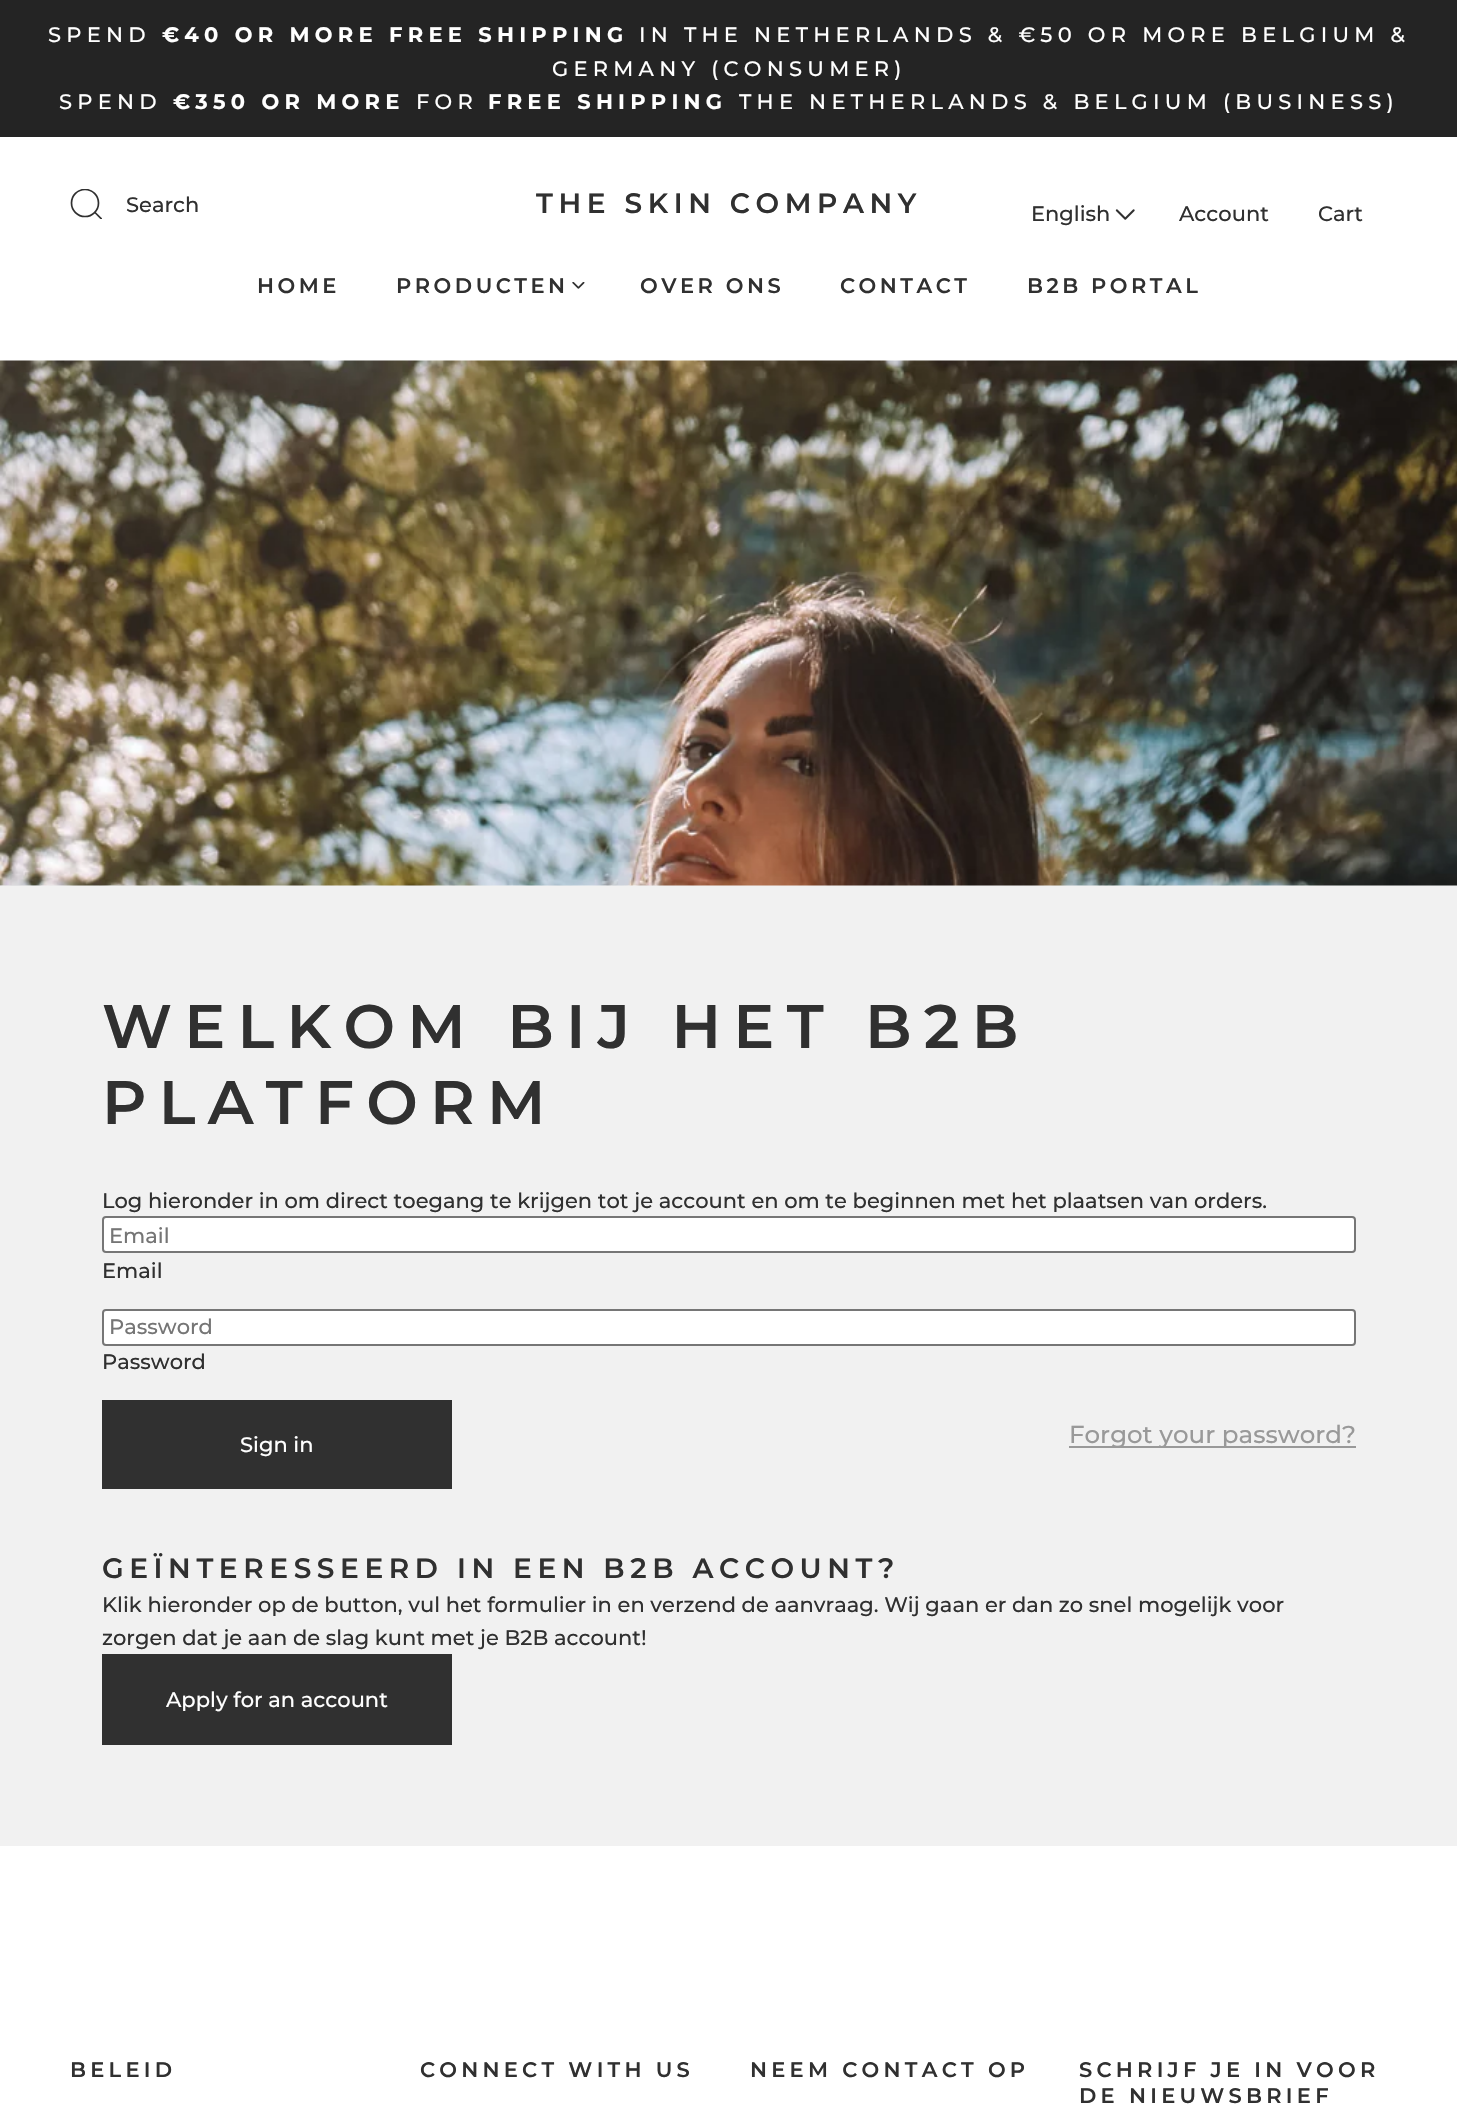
void draw(SkCanvas* canvas) {
	SkPaint paint;
	paint.setAntiAlias(true);
	auto spacedText = [&](const char* s, float x, float y, const SkFont& font, const SkPaint& ink, float letter, float word) {
		std::vector<SkGlyphID> glyphs(font.countText(s, strlen(s), SkTextEncoding::kUTF8));
		std::vector<float> xs(glyphs.size());
		font.textToGlyphs(s, strlen(s), SkTextEncoding::kUTF8, glyphs);
		font.getXPos(glyphs, xs, x);
		float extra = 0;
		for (size_t i = 0; i < glyphs.size(); i++) {
			xs[i] += extra;
			extra += letter + word * (glyphs[i] == font.unicharToGlyph(' '));
		}
		canvas->drawTextBlob(SkTextBlob::MakeFromPosHGlyphs(glyphs, xs, y, font), 0, 0, ink);
	};
	auto svgPath = [&](const char* data, bool evenOdd = false) {
		SkPath result = *SkParsePath::FromSVGString(data);
		if (evenOdd) result.setFillType(SkPathFillType::kEvenOdd);
		return result;
	};
	canvas->clear(0xffffffff);
	paint.setColor(0xff242424);
	canvas->drawRect(SkRect::MakeXYWH(0, 0, 1457, 137), paint);
	SkFont f1(fontMgr->matchFamilyStyle("Montserrat", SkFontStyle(500, SkFontStyle::kNormal_Width, SkFontStyle::kUpright_Slant)), 21);
	f1.setSubpixel(true);
	paint.setColor(0xffffffff);
	spacedText("SPEND", 48, 42, f1, paint, 5.25, 0);
	SkFont f2(fontMgr->matchFamilyStyle("Montserrat", SkFontStyle::Bold()), 21);
	f2.setSubpixel(true);
	spacedText("€40 OR MORE FREE SHIPPING", 162, 42, f2, paint, 5.25, 0);
	spacedText("IN THE NETHERLANDS & €50 OR MORE BELGIUM &", 639, 42, f1, paint, 5.25, 0);
	spacedText("GERMANY (CONSUMER)", 552, 76, f1, paint, 5.25, 0);
	spacedText("SPEND", 59, 109, f1, paint, 5.25, 0);
	spacedText("€350 OR MORE", 173, 109, f2, paint, 5.25, 0);
	spacedText("FOR", 416, 109, f1, paint, 5.25, 0);
	spacedText("FREE SHIPPING", 488, 109, f2, paint, 5.25, 0);
	spacedText("THE NETHERLANDS & BELGIUM (BUSINESS)", 739, 109, f1, paint, 5.25, 0);
	canvas->save();
	canvas->clipRect(SkRect::MakeXYWH(70, 189, 32, 30));
	paint.setStroke(true);
	paint.setStrokeWidth(1.7);
	paint.setColor(0xff303030);
	canvas->drawCircle(85, 203, 13.5, paint);
	canvas->drawPath(svgPath("M94.5 212L104 221.5"), paint);
	canvas->restore();
	paint.setStroke(false);
	canvas->drawString("Search", 126, 212, f1, paint);
	SkFont f3(fontMgr->matchFamilyStyle("Montserrat", SkFontStyle(600, SkFontStyle::kNormal_Width, SkFontStyle::kUpright_Slant)), 28);
	f3.setSubpixel(true);
	spacedText("THE SKIN COMPANY", 536, 213, f3, paint, 5.6, 0);
	canvas->drawString("English", 1031, 221, f1, paint);
	canvas->drawImageRect(SkImages::DeferredFromEncodedData(SkData::MakeFromFileName("img1.png")), SkRect::MakeXYWH(1115, 209, 20, 11), SkSamplingOptions());
	canvas->drawString("Account", 1179, 221, f1, paint);
	canvas->drawString("Cart", 1318, 221, f1, paint);
	SkFont f4(fontMgr->matchFamilyStyle("Montserrat", SkFontStyle(600, SkFontStyle::kNormal_Width, SkFontStyle::kUpright_Slant)), 21);
	f4.setSubpixel(true);
	spacedText("HOME", 257, 293, f4, paint, 3.5, 0);
	spacedText("PRODUCTEN", 396, 293, f4, paint, 3.5, 0);
	canvas->drawImageRect(SkImages::DeferredFromEncodedData(SkData::MakeFromFileName("img2.png")), SkRect::MakeXYWH(572, 282, 13, 7), SkSamplingOptions());
	spacedText("OVER ONS", 640, 293, f4, paint, 3.5, 0);
	spacedText("CONTACT", 840, 293, f4, paint, 3.5, 0);
	spacedText("B2B PORTAL", 1027, 293, f4, paint, 3.5, 0);
	paint.setColor(0xfff1f1f1);
	canvas->drawRect(SkRect::MakeXYWH(0, 885, 1457, 961), paint);
	canvas->drawImageRect(SkImages::DeferredFromEncodedData(SkData::MakeFromFileName("img3.png")), SkRect::MakeXYWH(0, 360, 1457, 526), SkSamplingOptions());
	SkFont f5(fontMgr->matchFamilyStyle("Montserrat", SkFontStyle(600, SkFontStyle::kNormal_Width, SkFontStyle::kUpright_Slant)), 61.25);
	f5.setSubpixel(true);
	paint.setColor(0xff303030);
	spacedText("WELKOM BIJ HET B2B", 102, 1048, f5, paint, 12.25, 0);
	spacedText("PLATFORM", 102, 1124, f5, paint, 12.25, 0);
	canvas->drawString("Log hieronder in om direct toegang te krijgen tot je account en om te beginnen met het plaatsen van orders.", 102, 1208, f1, paint);
	paint.setColor(0xffffffff);
	canvas->drawRoundRect(SkRect::MakeXYWH(103, 1217, 1252, 35), 3, 3, paint);
	paint.setStroke(true);
	paint.setStrokeWidth(2);
	paint.setColor(0xff767676);
	canvas->drawRoundRect(SkRect::MakeXYWH(103, 1217, 1252, 35), 3, 3, paint);
	paint.setStroke(false);
	paint.setColor(0xff757575);
	canvas->drawString("Email", 109, 1243, f1, paint);
	paint.setColor(0xff303030);
	canvas->drawString("Email", 102, 1278, f1, paint);
	paint.setColor(0xffffffff);
	canvas->drawRoundRect(SkRect::MakeXYWH(103, 1310, 1252, 35), 3, 3, paint);
	paint.setStroke(true);
	paint.setColor(0xff767676);
	canvas->drawRoundRect(SkRect::MakeXYWH(103, 1310, 1252, 35), 3, 3, paint);
	paint.setStroke(false);
	paint.setColor(0xff757575);
	canvas->drawString("Password", 109, 1334, f1, paint);
	paint.setColor(0xff303030);
	canvas->drawString("Password", 102, 1369, f1, paint);
	canvas->drawRect(SkRect::MakeXYWH(102, 1400, 350, 89), paint);
	paint.setColor(0xffffffff);
	canvas->drawString("Sign in", 240, 1452, f1, paint);
	paint.setColor(0xff999999);
	canvas->drawRect(SkRect::MakeXYWH(1069, 1446, 287, 2), paint);
	SkFont f6(fontMgr->matchFamilyStyle("Montserrat", SkFontStyle(500, SkFontStyle::kNormal_Width, SkFontStyle::kUpright_Slant)), 24.5);
	f6.setSubpixel(true);
	canvas->drawString("Forgot your password?", 1069, 1443, f6, paint);
	paint.setColor(0xff303030);
	spacedText("GEÏNTERESSEERD IN EEN B2B ACCOUNT?", 102, 1578, f3, paint, 5.6, 0);
	canvas->drawString("Klik hieronder op de button, vul het formulier in en verzend de aanvraag. Wij gaan er dan zo snel mogelijk voor", 102, 1612, f1, paint);
	canvas->drawString("zorgen dat je aan de slag kunt met je B2B account!", 102, 1645, f1, paint);
	canvas->drawRect(SkRect::MakeXYWH(102, 1654, 350, 91), paint);
	paint.setColor(0xffffffff);
	canvas->drawString("Apply for an account", 166, 1707, f1, paint);
	paint.setColor(0xff303030);
	spacedText("BELEID", 70, 2077, f4, paint, 4.25, 0);
	spacedText("CONNECT WITH US", 420, 2077, f4, paint, 4.25, 0);
	spacedText("NEEM CONTACT OP", 750, 2077, f4, paint, 4.25, 0);
	spacedText("SCHRIJF JE IN VOOR", 1079, 2077, f4, paint, 4.25, 0);
	spacedText("DE NIEUWSBRIEF", 1079, 2103, f4, paint, 4.25, 0);
}
